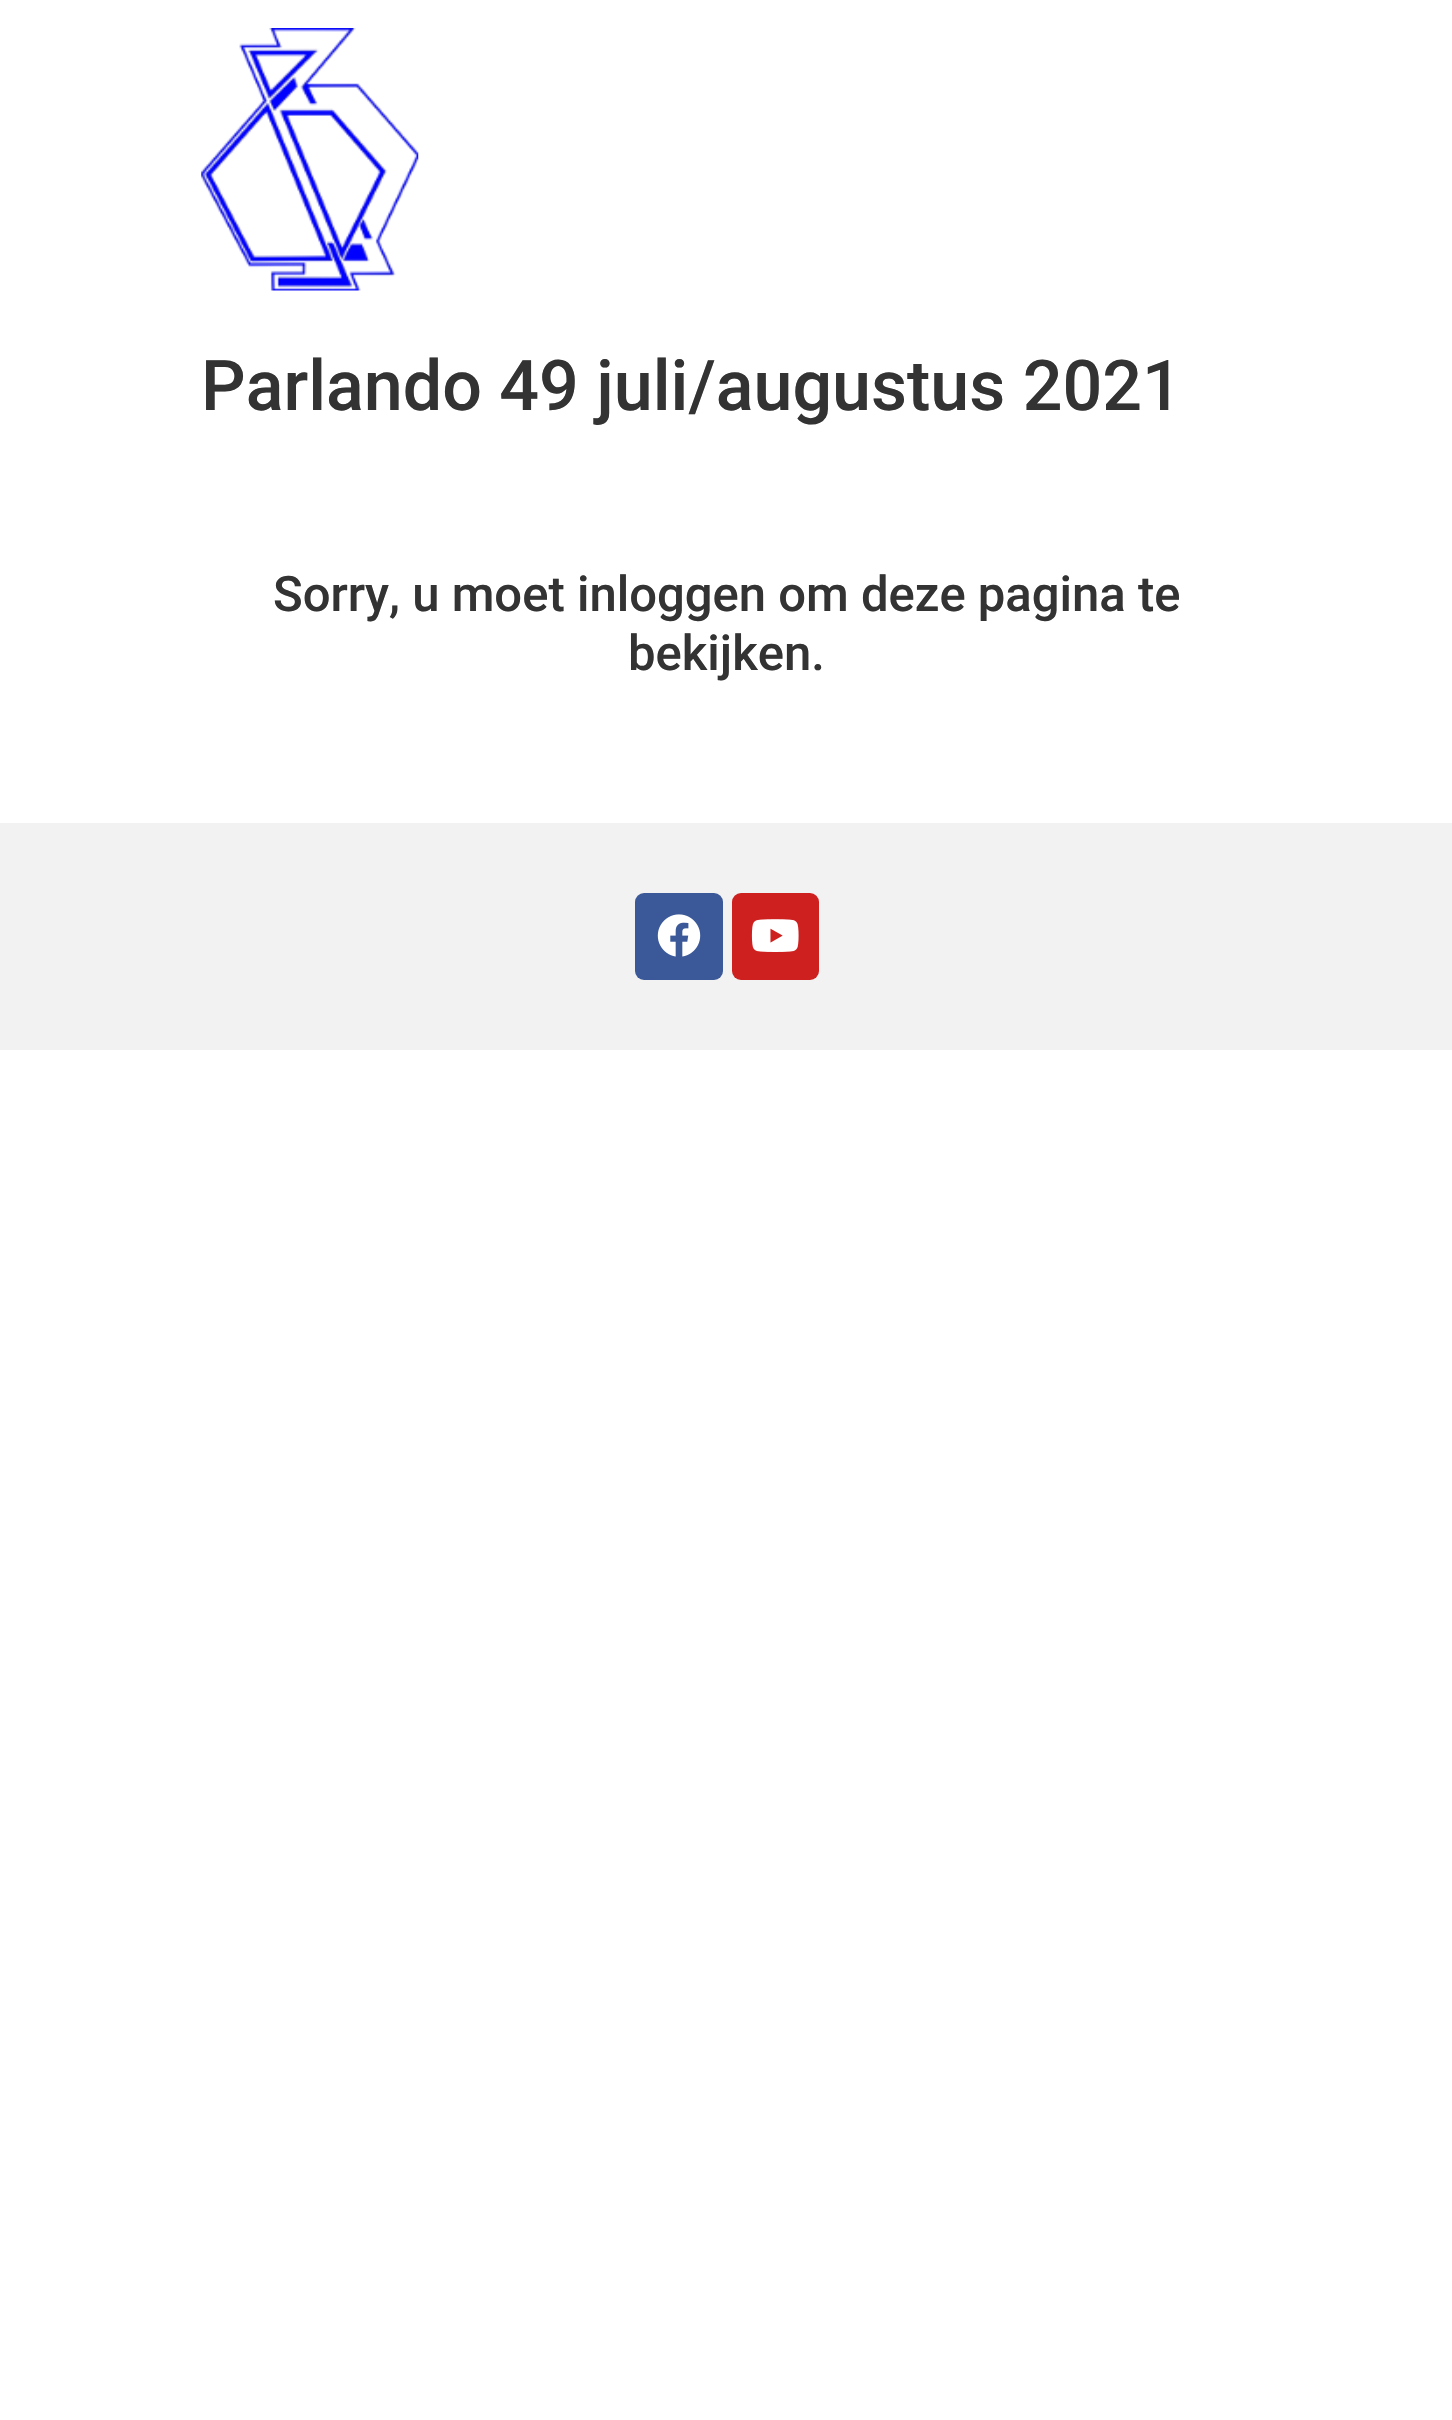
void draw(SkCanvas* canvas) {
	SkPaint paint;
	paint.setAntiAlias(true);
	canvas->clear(0xffffffff);
	canvas->drawImageRect(SkImages::DeferredFromEncodedData(SkData::MakeFromFileName("img1.png")), SkRect::MakeXYWH(201, 28, 218, 263), SkSamplingOptions());
	SkFont f1(fontMgr->matchFamilyStyle("Roboto", SkFontStyle(500, SkFontStyle::kNormal_Width, SkFontStyle::kUpright_Slant)), 70);
	f1.setSubpixel(true);
	paint.setColor(0xff333333);
	canvas->drawString("Parlando 49 juli/augustus 2021", 201, 410, f1, paint);
	SkFont f2(fontMgr->matchFamilyStyle("Roboto", SkFontStyle(500, SkFontStyle::kNormal_Width, SkFontStyle::kUpright_Slant)), 49);
	f2.setSubpixel(true);
	canvas->drawString("Sorry, u moet inloggen om deze pagina te", 273, 611, f2, paint);
	canvas->drawString("bekijken.", 628, 670, f2, paint);
	paint.setColor(0xfff2f2f2);
	canvas->drawRect(SkRect::MakeXYWH(0, 823, 1452, 227), paint);
	paint.setColor(0xff3b5998);
	canvas->drawRoundRect(SkRect::MakeXYWH(635, 893, 88, 87), 9, 9, paint);
	canvas->drawImageRect(SkImages::DeferredFromEncodedData(SkData::MakeFromFileName("img2.png")), SkRect::MakeXYWH(657, 914, 44, 43), SkSamplingOptions());
	paint.setColor(0xffcd201f);
	canvas->drawRoundRect(SkRect::MakeXYWH(732, 893, 87, 87), 9, 9, paint);
	canvas->drawImageRect(SkImages::DeferredFromEncodedData(SkData::MakeFromFileName("img3.png")), SkRect::MakeXYWH(751, 919, 48, 33), SkSamplingOptions());
}
